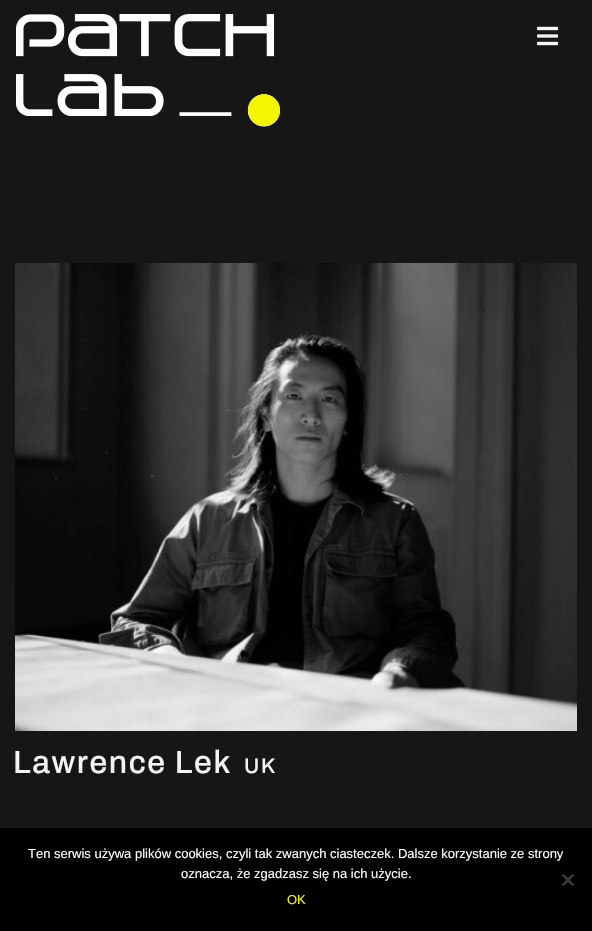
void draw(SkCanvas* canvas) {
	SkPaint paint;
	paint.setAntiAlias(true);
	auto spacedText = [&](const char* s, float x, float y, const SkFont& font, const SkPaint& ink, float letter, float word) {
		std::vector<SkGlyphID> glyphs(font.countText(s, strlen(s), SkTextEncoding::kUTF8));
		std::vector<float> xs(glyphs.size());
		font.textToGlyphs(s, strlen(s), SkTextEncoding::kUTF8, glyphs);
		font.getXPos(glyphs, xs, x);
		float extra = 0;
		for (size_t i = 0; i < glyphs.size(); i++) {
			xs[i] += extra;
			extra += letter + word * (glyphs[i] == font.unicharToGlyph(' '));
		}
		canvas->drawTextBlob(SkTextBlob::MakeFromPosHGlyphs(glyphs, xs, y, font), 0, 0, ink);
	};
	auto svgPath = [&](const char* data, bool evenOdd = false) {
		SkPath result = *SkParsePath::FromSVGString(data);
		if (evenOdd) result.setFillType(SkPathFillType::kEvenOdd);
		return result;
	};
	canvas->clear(0xff161616);
	canvas->drawImageRect(SkImages::DeferredFromEncodedData(SkData::MakeFromFileName("img1.png")), SkRect::MakeXYWH(16, 14, 264, 113), SkSamplingOptions());
	canvas->drawImageRect(SkImages::DeferredFromEncodedData(SkData::MakeFromFileName("img2.png")), SkRect::MakeXYWH(537, 26, 21, 20), SkSamplingOptions());
	canvas->drawImageRect(SkImages::DeferredFromEncodedData(SkData::MakeFromFileName("img3.png")), SkRect::MakeXYWH(15, 263, 562, 468), SkSamplingOptions());
	SkFont f1(fontMgr->matchFamilyStyle("Archivo", SkFontStyle(500, SkFontStyle::kNormal_Width, SkFontStyle::kUpright_Slant)), 32);
	f1.setSubpixel(true);
	paint.setColor(0xfff2f4f6);
	spacedText("Lawrence Lek", 13, 773, f1, paint, 1.6, 0);
	SkFont f2(fontMgr->matchFamilyStyle("Archivo", SkFontStyle(500, SkFontStyle::kNormal_Width, SkFontStyle::kUpright_Slant)), 21);
	f2.setSubpixel(true);
	spacedText("UK", 244, 773, f2, paint, 1.6, 0);
	paint.setColor(0xff000000);
	canvas->drawRect(SkRect::MakeXYWH(0, 828, 592, 103), paint);
	SkFont f3(fontMgr->matchFamilyStyle("Liberation Sans", SkFontStyle::Normal()), 13);
	f3.setSubpixel(true);
	paint.setColor(0xffffffff);
	canvas->drawString("Ten serwis używa plików cookies, czyli tak zwanych ciasteczek. Dalsze korzystanie ze strony", 28, 858, f3, paint);
	canvas->drawString("oznacza, że zgadzasz się na ich użycie.", 181, 878, f3, paint);
	paint.setColor(0xff404040);
	canvas->drawPath(svgPath("M572.5 874L574 875.5L563.5 886L562 884.5Z"), paint);
	canvas->drawPath(svgPath("M562 875.5L563.5 874L574 884.5L572.5 886Z"), paint);
	paint.setColor(0xfff4f600);
	canvas->drawString("OK", 287, 904, f3, paint);
}
